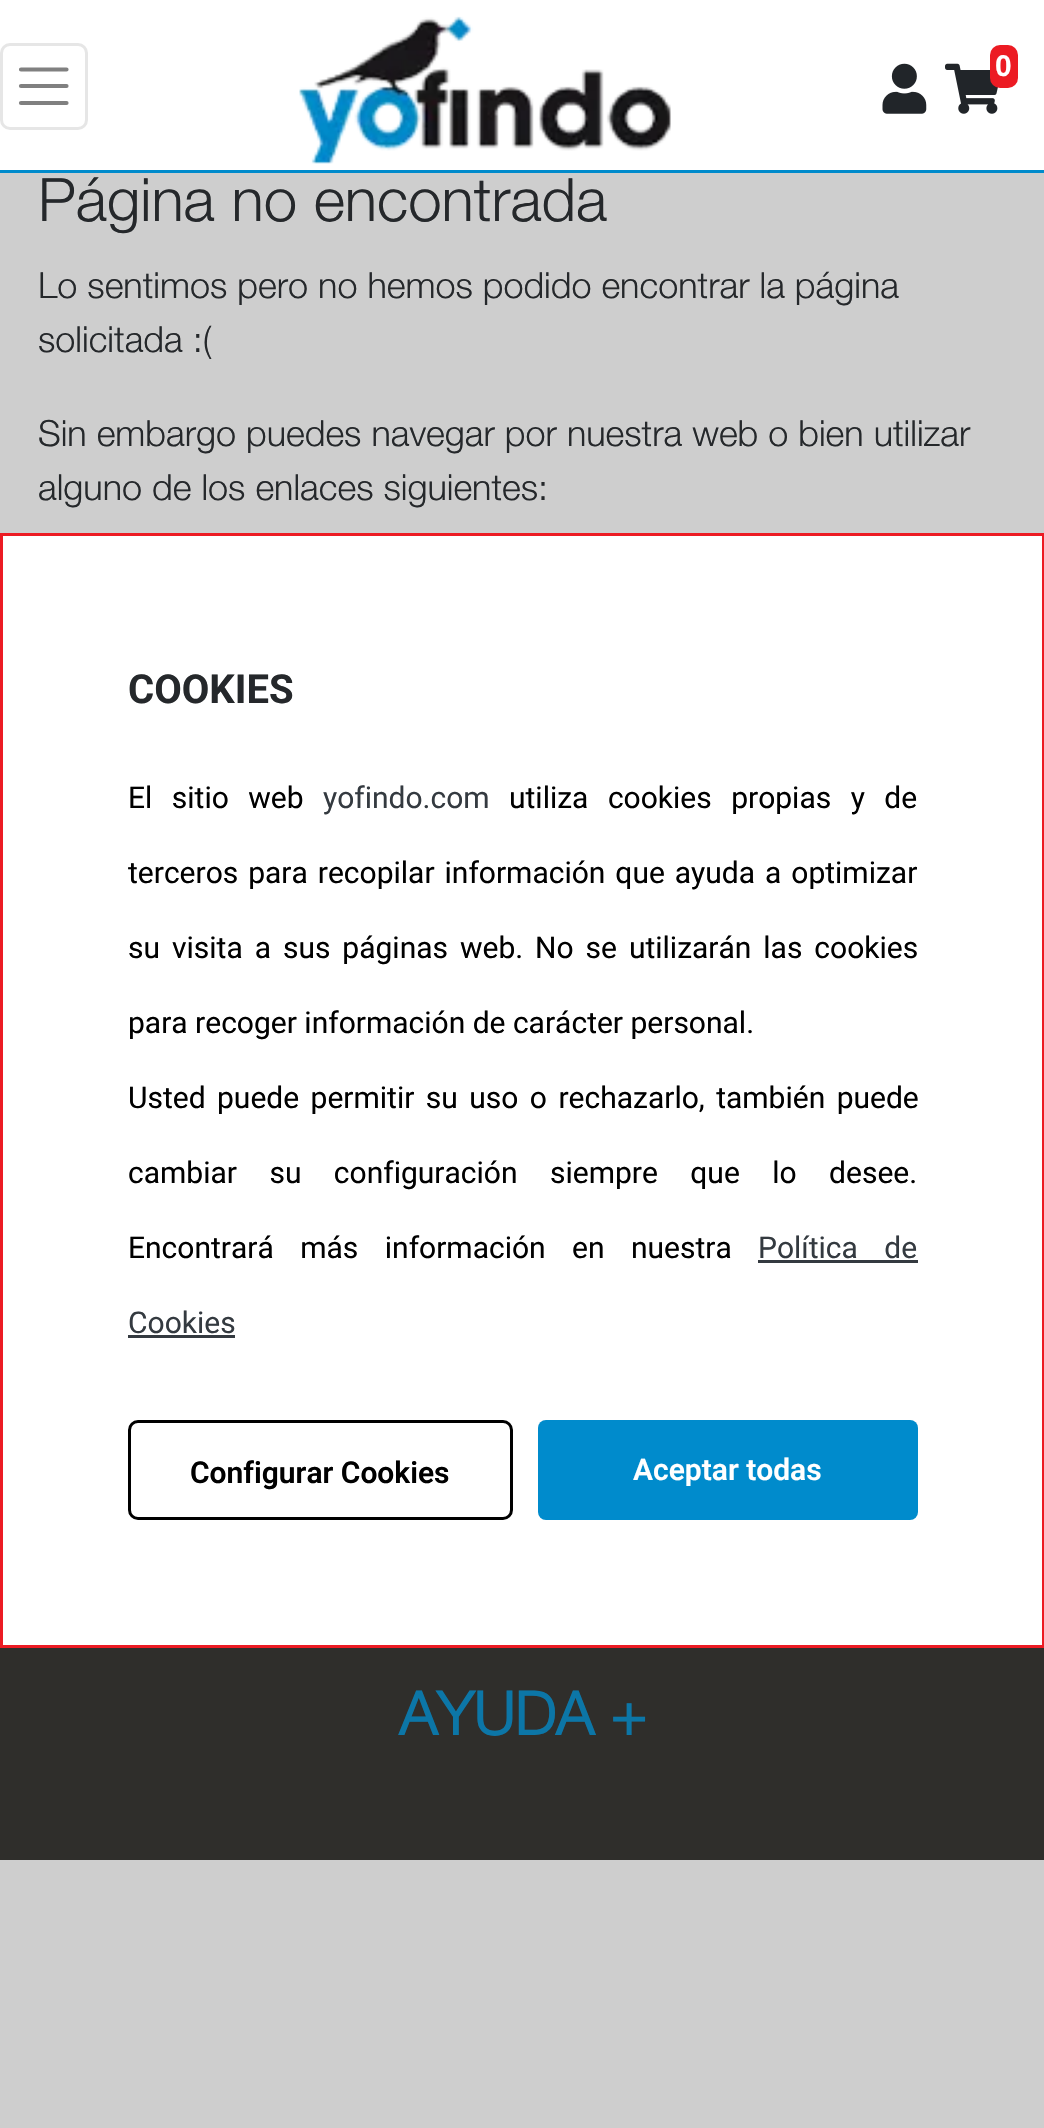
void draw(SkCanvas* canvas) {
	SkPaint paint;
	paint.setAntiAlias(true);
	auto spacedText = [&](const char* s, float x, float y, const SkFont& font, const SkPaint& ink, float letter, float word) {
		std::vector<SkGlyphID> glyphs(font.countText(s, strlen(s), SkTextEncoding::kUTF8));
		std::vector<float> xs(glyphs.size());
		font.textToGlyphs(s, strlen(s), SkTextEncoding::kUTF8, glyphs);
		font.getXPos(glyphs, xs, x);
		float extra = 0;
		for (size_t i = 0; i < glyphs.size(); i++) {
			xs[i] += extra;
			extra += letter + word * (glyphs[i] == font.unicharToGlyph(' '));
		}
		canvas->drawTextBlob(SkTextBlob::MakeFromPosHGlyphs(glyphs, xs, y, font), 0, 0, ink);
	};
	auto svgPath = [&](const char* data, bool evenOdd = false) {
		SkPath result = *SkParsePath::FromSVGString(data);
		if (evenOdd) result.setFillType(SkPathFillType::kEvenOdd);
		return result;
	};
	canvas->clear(0xffcecece);
	paint.setColor(0xffffffff);
	canvas->drawRect(SkRect::MakeXYWH(0, 0, 1044, 170), paint);
	paint.setColor(0xff008bcc);
	canvas->drawRect(SkRect::MakeXYWH(0, 170, 1044, 3), paint);
	paint.setStroke(true);
	paint.setStrokeWidth(3);
	paint.setColor(0xffe6e6e6);
	canvas->drawRoundRect(SkRect::MakeXYWH(1.5, 44.5, 85, 84), 8.5, 8.5, paint);
	paint.setStrokeWidth(4.2);
	paint.setStrokeCap(SkPaint::kRound_Cap);
	paint.setColor(0xff808080);
	canvas->drawPath(svgPath("M21 69.5H66.5M21 86H66.5M21 103H66.5"), paint);
	canvas->drawImageRect(SkImages::DeferredFromEncodedData(SkData::MakeFromFileName("img1.png")), SkRect::MakeXYWH(299, 16, 372, 148), SkSamplingOptions());
	canvas->drawImageRect(SkImages::DeferredFromEncodedData(SkData::MakeFromFileName("img2.png")), SkRect::MakeXYWH(882, 63, 45, 51), SkSamplingOptions());
	canvas->drawImageRect(SkImages::DeferredFromEncodedData(SkData::MakeFromFileName("img3.png")), SkRect::MakeXYWH(945, 63, 53, 51), SkSamplingOptions());
	paint.setStroke(false);
	paint.setColor(0xffec1b23);
	canvas->drawRoundRect(SkRect::MakeXYWH(990, 45, 28, 43), 10, 10, paint);
	SkFont f1(fontMgr->matchFamilyStyle("Liberation Sans", SkFontStyle::Bold()), 30);
	f1.setSubpixel(true);
	paint.setColor(0xffffffff);
	canvas->drawString("0", 995, 76, f1, paint);
	SkFont f2(fontMgr->matchFamilyStyle("Helvetica Neue", SkFontStyle(300, SkFontStyle::kNormal_Width, SkFontStyle::kUpright_Slant)), 60);
	f2.setSubpixel(true);
	paint.setColor(0xff25282b);
	canvas->drawString("Página no encontrada", 38, 221, f2, paint);
	SkFont f3(fontMgr->matchFamilyStyle("Helvetica Neue", SkFontStyle(300, SkFontStyle::kNormal_Width, SkFontStyle::kUpright_Slant)), 36);
	f3.setSubpixel(true);
	canvas->drawString("Lo sentimos pero no hemos podido encontrar la página", 38, 298, f3, paint);
	canvas->drawString("solicitada :(", 38, 352, f3, paint);
	canvas->drawString("Sin embargo puedes navegar por nuestra web o bien utilizar", 38, 446, f3, paint);
	canvas->drawString("alguno de los enlaces siguientes:", 38, 500, f3, paint);
	paint.setColor(0xff2f2e2b);
	canvas->drawRect(SkRect::MakeXYWH(0, 1648, 1044, 212), paint);
	SkFont f4(fontMgr->matchFamilyStyle("Helvetica Neue", SkFontStyle::Bold()), 60);
	f4.setSubpixel(true);
	paint.setColor(0xff0c76a7);
	canvas->drawString("AYUDA +", 399, 1735, f4, paint);
	paint.setColor(0xffffffff);
	canvas->drawRect(SkRect::MakeXYWH(1.5, 534.5, 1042, 1112), paint);
	paint.setStroke(true);
	paint.setStrokeWidth(3);
	paint.setStrokeCap(SkPaint::kButt_Cap);
	paint.setColor(0xffec1b23);
	canvas->drawRect(SkRect::MakeXYWH(1.5, 534.5, 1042, 1112), paint);
	SkFont f5(fontMgr->matchFamilyStyle("Roboto", SkFontStyle::Bold()), 40);
	f5.setSubpixel(true);
	paint.setStroke(false);
	paint.setColor(0xff25282b);
	canvas->drawString("COOKIES", 128, 703, f5, paint);
	SkFont f6(fontMgr->matchFamilyStyle("Roboto", SkFontStyle::Normal()), 30);
	f6.setSubpixel(true);
	paint.setColor(0xff000000);
	spacedText("El sitio web", 128, 808, f6, paint, 0, 12);
	paint.setColor(0xff343a40);
	canvas->drawString("yofindo.com", 323, 808, f6, paint);
	paint.setColor(0xff000000);
	spacedText("utiliza cookies propias y de", 509, 808, f6, paint, 0, 12);
	spacedText("terceros para recopilar información que ayuda a optimizar", 128, 883, f6, paint, 0, 2.5);
	spacedText("su visita a sus páginas web. No se utilizarán las cookies", 128, 958, f6, paint, 0, 4.5);
	canvas->drawString("para recoger información de carácter personal.", 128, 1033, f6, paint);
	spacedText("Usted puede permitir su uso o rechazarlo, también puede", 128, 1108, f6, paint, 0, 4);
	spacedText("cambiar su configuración siempre que lo desee.", 128, 1183, f6, paint, 0, 25);
	spacedText("Encontrará más información en nuestra", 128, 1258, f6, paint, 0, 19);
	paint.setColor(0xff343a40);
	spacedText("Política de", 758, 1258, f6, paint, 0, 19);
	canvas->drawRect(SkRect::MakeXYWH(758, 1260, 160, 3), paint);
	canvas->drawString("Cookies", 128, 1333, f6, paint);
	canvas->drawRect(SkRect::MakeXYWH(128, 1335, 107, 3), paint);
	paint.setStroke(true);
	paint.setColor(0xff000000);
	canvas->drawRoundRect(SkRect::MakeXYWH(129.5, 1421.5, 382, 97), 8.5, 8.5, paint);
	SkFont f7(fontMgr->matchFamilyStyle("Roboto", SkFontStyle(600, SkFontStyle::kNormal_Width, SkFontStyle::kUpright_Slant)), 30);
	f7.setSubpixel(true);
	paint.setStroke(false);
	canvas->drawString("Configurar Cookies", 190, 1483, f7, paint);
	paint.setColor(0xff008bcc);
	canvas->drawRoundRect(SkRect::MakeXYWH(538, 1420, 380, 100), 8, 8, paint);
	paint.setColor(0xffffffff);
	canvas->drawString("Aceptar todas", 633, 1480, f7, paint);
}
